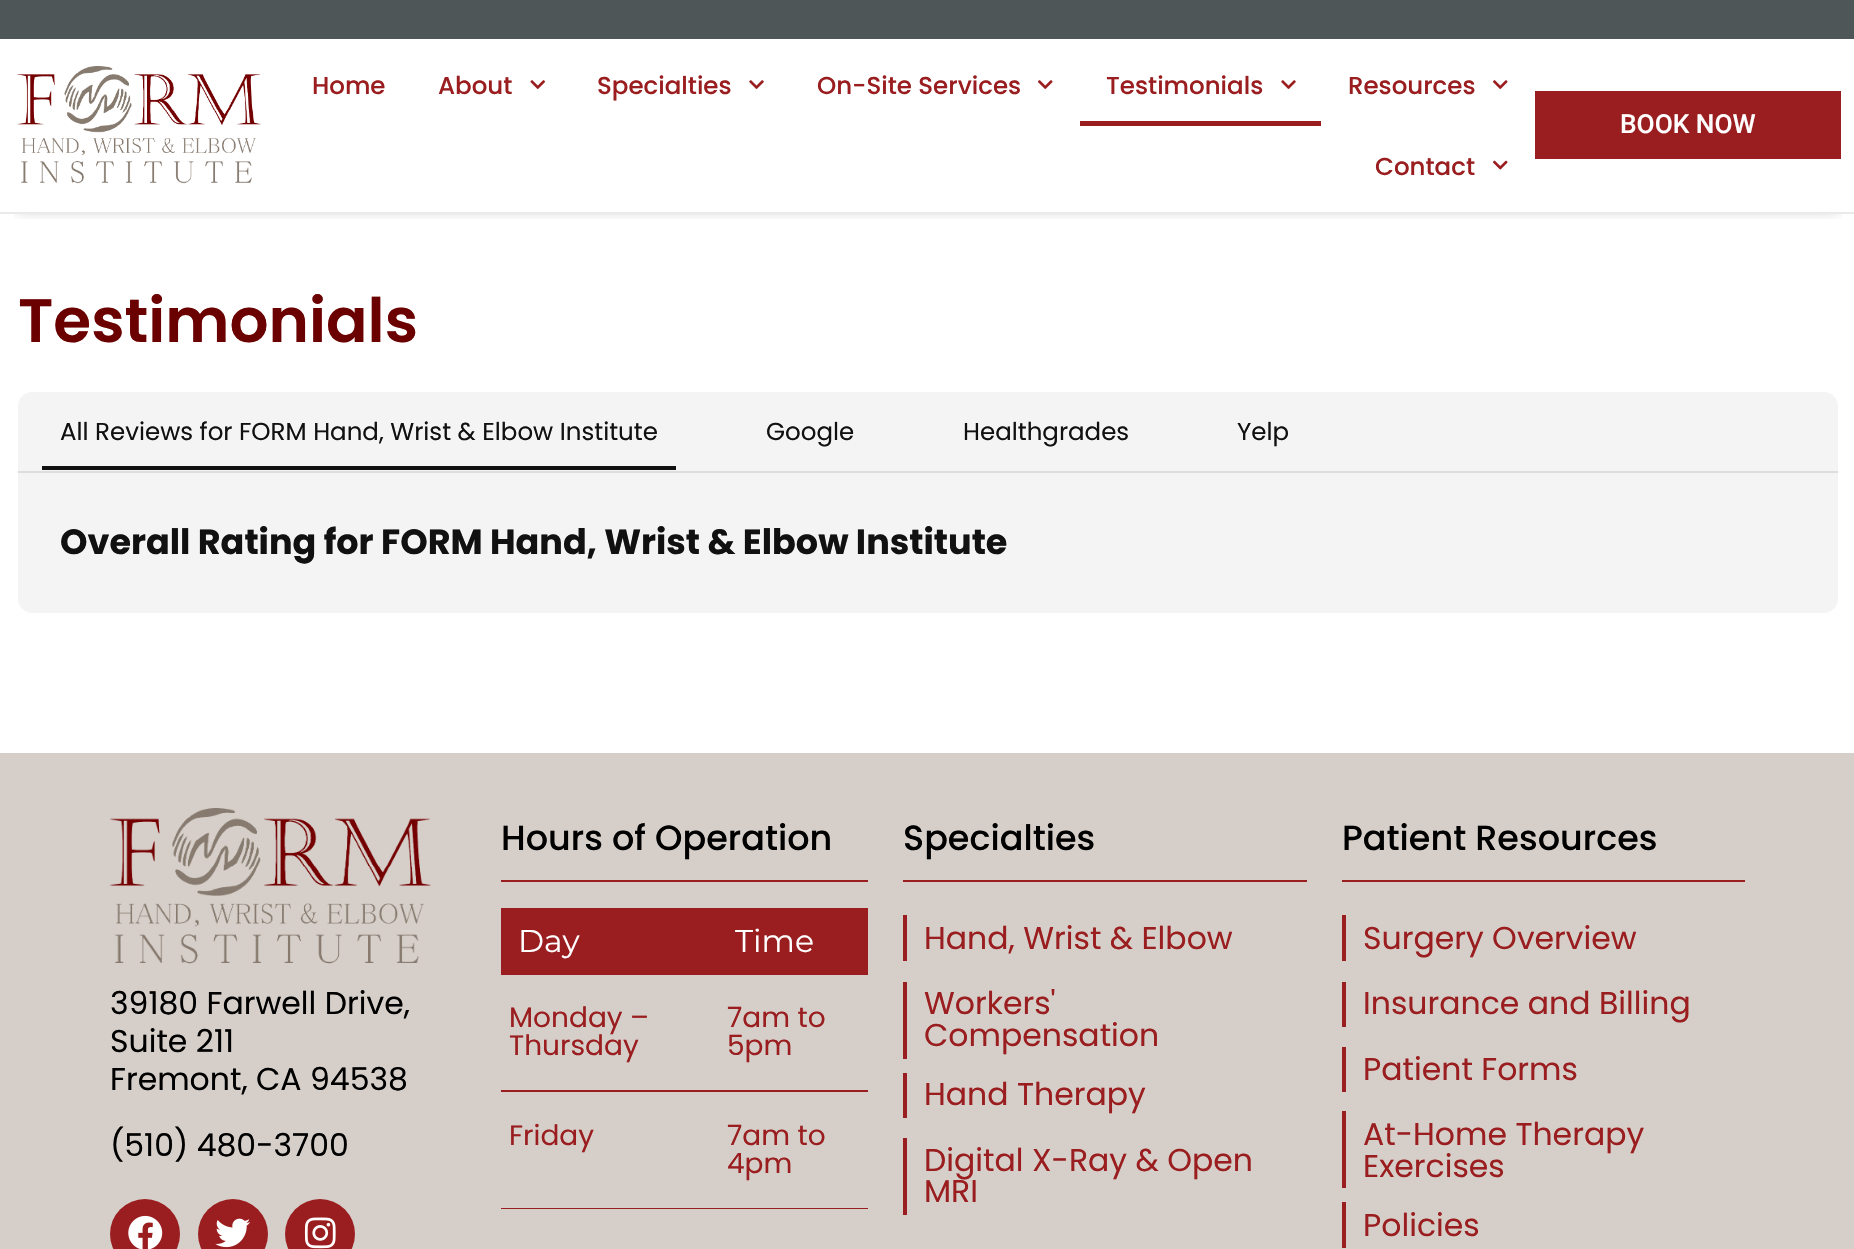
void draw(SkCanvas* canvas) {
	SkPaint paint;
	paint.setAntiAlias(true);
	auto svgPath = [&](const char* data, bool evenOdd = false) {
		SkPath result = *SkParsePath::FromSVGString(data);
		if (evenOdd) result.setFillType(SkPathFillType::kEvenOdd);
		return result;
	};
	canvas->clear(0xffffffff);
	paint.setColor(0xff4f5658);
	canvas->drawRect(SkRect::MakeXYWH(0, 0, 1854, 39), paint);
	canvas->save();
	canvas->clipRect(SkRect::MakeXYWH(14, 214, 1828, 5));
	paint.setColor(0x99000000);
	paint.setMaskFilter(SkMaskFilter::MakeBlur(kNormal_SkBlurStyle, 9));
	canvas->drawRect(SkRect::MakeXYWH(18, 63, 1820, 140), paint);
	paint.setMaskFilter(nullptr);
	canvas->restore();
	paint.setColor(0xffeaeaea);
	canvas->drawRect(SkRect::MakeXYWH(0, 212, 1854, 2), paint);
	canvas->drawImageRect(SkImages::DeferredFromEncodedData(SkData::MakeFromFileName("img1.png")), SkRect::MakeXYWH(17, 66, 244, 118), SkSamplingOptions());
	SkFont f1(fontMgr->matchFamilyStyle("Poppins", SkFontStyle(500, SkFontStyle::kNormal_Width, SkFontStyle::kUpright_Slant)), 24.5);
	f1.setSubpixel(true);
	paint.setColor(0xff9a1d1f);
	canvas->drawString("Home", 312, 94, f1, paint);
	canvas->drawString("About", 438, 94, f1, paint);
	canvas->drawImageRect(SkImages::DeferredFromEncodedData(SkData::MakeFromFileName("img2.png")), SkRect::MakeXYWH(530, 80, 15, 9), SkSamplingOptions());
	canvas->drawString("Specialties", 597, 94, f1, paint);
	canvas->drawImageRect(SkImages::DeferredFromEncodedData(SkData::MakeFromFileName("img3.png")), SkRect::MakeXYWH(749, 80, 15, 9), SkSamplingOptions());
	canvas->drawString("On-Site Services", 817, 94, f1, paint);
	canvas->drawImageRect(SkImages::DeferredFromEncodedData(SkData::MakeFromFileName("img4.png")), SkRect::MakeXYWH(1038, 80, 15, 9), SkSamplingOptions());
	canvas->drawString("Testimonials", 1106, 94, f1, paint);
	canvas->drawImageRect(SkImages::DeferredFromEncodedData(SkData::MakeFromFileName("img3.png")), SkRect::MakeXYWH(1281, 80, 15, 9), SkSamplingOptions());
	paint.setColor(0xff9a1e20);
	canvas->drawRect(SkRect::MakeXYWH(1080, 121, 241, 5), paint);
	paint.setColor(0xff9a1d1f);
	canvas->drawString("Resources", 1348, 94, f1, paint);
	canvas->drawImageRect(SkImages::DeferredFromEncodedData(SkData::MakeFromFileName("img4.png")), SkRect::MakeXYWH(1493, 80, 15, 9), SkSamplingOptions());
	canvas->drawString("Contact", 1375, 175, f1, paint);
	canvas->drawImageRect(SkImages::DeferredFromEncodedData(SkData::MakeFromFileName("img5.png")), SkRect::MakeXYWH(1493, 160, 15, 10), SkSamplingOptions());
	canvas->drawRect(SkRect::MakeXYWH(1535, 91, 306, 68), paint);
	SkFont f2(fontMgr->matchFamilyStyle("Roboto", SkFontStyle(500, SkFontStyle::kNormal_Width, SkFontStyle::kUpright_Slant)), 26.25);
	f2.setSubpixel(true);
	paint.setColor(0xffffffff);
	canvas->drawString("BOOK NOW", 1620, 133, f2, paint);
	SkFont f3(fontMgr->matchFamilyStyle("Poppins", SkFontStyle(600, SkFontStyle::kNormal_Width, SkFontStyle::kUpright_Slant)), 61.25);
	f3.setSubpixel(true);
	paint.setColor(0xff6a0000);
	canvas->drawString("Testimonials", 18, 342, f3, paint);
	paint.setColor(0xfff4f4f4);
	canvas->drawPath(svgPath("M32 392H1824C1831.5 392 1838 398.5 1838 406V473H18V406C18 398.5 24.5 392 32 392Z"), paint);
	paint.setColor(0xffdddddd);
	canvas->drawRect(SkRect::MakeXYWH(18, 471, 1820, 2), paint);
	SkFont f4(fontMgr->matchFamilyStyle("Poppins", SkFontStyle::Normal()), 24.5);
	f4.setSubpixel(true);
	paint.setColor(0xff111111);
	canvas->drawString("All Reviews for FORM Hand, Wrist & Elbow Institute", 60, 440, f4, paint);
	canvas->drawRect(SkRect::MakeXYWH(42, 466, 634, 4), paint);
	canvas->drawString("Google", 766, 440, f4, paint);
	canvas->drawString("Healthgrades", 963, 440, f4, paint);
	canvas->drawString("Yelp", 1237, 440, f4, paint);
	paint.setColor(0xfff4f4f4);
	canvas->drawPath(svgPath("M18 473H1838V599C1838 606.5 1831.5 613 1824 613H32C24.5 613 18 606.5 18 599Z"), paint);
	SkFont f5(fontMgr->matchFamilyStyle("Poppins", SkFontStyle::Bold()), 35);
	f5.setSubpixel(true);
	paint.setColor(0xff111111);
	canvas->drawString("Overall Rating for FORM Hand, Wrist & Elbow Institute", 60, 554, f5, paint);
	paint.setColor(0xffd6cfc9);
	canvas->drawRect(SkRect::MakeXYWH(0, 753, 1854, 496), paint);
	canvas->drawImageRect(SkImages::DeferredFromEncodedData(SkData::MakeFromFileName("img6.png")), SkRect::MakeXYWH(110, 808, 321, 156), SkSamplingOptions());
	SkFont f6(fontMgr->matchFamilyStyle("Poppins", SkFontStyle::Normal()), 31.5);
	f6.setSubpixel(true);
	paint.setColor(0xff000000);
	canvas->drawString("39180 Farwell Drive,", 110, 1014, f6, paint);
	canvas->drawString("Suite 211", 110, 1052, f6, paint);
	canvas->drawString("Fremont, CA 94538", 110, 1090, f6, paint);
	canvas->drawString("(510) 480-3700", 110, 1156, f6, paint);
	paint.setColor(0xff9a1d1f);
	canvas->drawCircle(145, 1234, 35, paint);
	canvas->drawImageRect(SkImages::DeferredFromEncodedData(SkData::MakeFromFileName("img7.png")), SkRect::MakeXYWH(128, 1215, 35, 34), SkSamplingOptions());
	canvas->drawCircle(233, 1234, 35, paint);
	canvas->drawImageRect(SkImages::DeferredFromEncodedData(SkData::MakeFromFileName("img8.png")), SkRect::MakeXYWH(215, 1218, 36, 30), SkSamplingOptions());
	canvas->drawCircle(320, 1234, 35, paint);
	canvas->drawImageRect(SkImages::DeferredFromEncodedData(SkData::MakeFromFileName("img9.png")), SkRect::MakeXYWH(304, 1217, 32, 32), SkSamplingOptions());
	SkFont f7(fontMgr->matchFamilyStyle("Poppins", SkFontStyle(500, SkFontStyle::kNormal_Width, SkFontStyle::kUpright_Slant)), 35);
	f7.setSubpixel(true);
	paint.setColor(0xff000000);
	canvas->drawString("Hours of Operation", 501, 850, f7, paint);
	paint.setColor(0xff9a1d1f);
	canvas->drawRect(SkRect::MakeXYWH(501, 880, 367, 2), paint);
	canvas->drawRect(SkRect::MakeXYWH(501, 908, 367, 67), paint);
	SkFont f8(fontMgr->matchFamilyStyle("Montserrat", SkFontStyle::Normal()), 31.5);
	f8.setSubpixel(true);
	paint.setColor(0xffffffff);
	canvas->drawString("Day", 518, 952, f8, paint);
	canvas->drawString("Time", 735, 952, f8, paint);
	paint.setColor(0xff9a1d1f);
	canvas->drawRect(SkRect::MakeXYWH(501, 1090, 367, 2), paint);
	SkFont f9(fontMgr->matchFamilyStyle("Poppins", SkFontStyle::Normal()), 28);
	f9.setSubpixel(true);
	canvas->drawString("Monday –", 509, 1027, f9, paint);
	canvas->drawString("Thursday", 509, 1055, f9, paint);
	canvas->drawString("7am to", 727, 1027, f9, paint);
	canvas->drawString("5pm", 727, 1055, f9, paint);
	canvas->drawRect(SkRect::MakeXYWH(501, 1208, 367, 1), paint);
	canvas->drawString("Friday", 509, 1145, f9, paint);
	canvas->drawString("7am to", 727, 1145, f9, paint);
	canvas->drawString("4pm", 727, 1173, f9, paint);
	paint.setColor(0xff000000);
	canvas->drawString("Specialties", 903, 850, f7, paint);
	paint.setColor(0xff9a1d1f);
	canvas->drawRect(SkRect::MakeXYWH(903, 880, 404, 2), paint);
	canvas->drawRect(SkRect::MakeXYWH(903, 915, 4, 46), paint);
	canvas->drawString("Hand, Wrist & Elbow", 924, 949, f6, paint);
	canvas->drawRect(SkRect::MakeXYWH(903, 982, 4, 77), paint);
	canvas->drawString("Workers'", 924, 1014, f6, paint);
	canvas->drawString("Compensation", 924, 1046, f6, paint);
	canvas->drawRect(SkRect::MakeXYWH(903, 1073, 4, 45), paint);
	canvas->drawString("Hand Therapy", 924, 1105, f6, paint);
	canvas->drawRect(SkRect::MakeXYWH(903, 1138, 4, 77), paint);
	canvas->drawString("Digital X-Ray & Open", 924, 1171, f6, paint);
	canvas->drawString("MRI", 924, 1202, f6, paint);
	paint.setColor(0xff000000);
	canvas->drawString("Patient Resources", 1342, 850, f7, paint);
	paint.setColor(0xff9a1d1f);
	canvas->drawRect(SkRect::MakeXYWH(1342, 880, 403, 2), paint);
	canvas->drawRect(SkRect::MakeXYWH(1342, 915, 4, 46), paint);
	canvas->drawString("Surgery Overview", 1363, 949, f6, paint);
	canvas->drawRect(SkRect::MakeXYWH(1342, 982, 4, 45), paint);
	canvas->drawString("Insurance and Billing", 1363, 1014, f6, paint);
	canvas->drawRect(SkRect::MakeXYWH(1342, 1047, 4, 45), paint);
	canvas->drawString("Patient Forms", 1363, 1080, f6, paint);
	canvas->drawRect(SkRect::MakeXYWH(1342, 1111, 4, 77), paint);
	canvas->drawString("At-Home Therapy", 1363, 1145, f6, paint);
	canvas->drawString("Exercises", 1363, 1177, f6, paint);
	canvas->drawRect(SkRect::MakeXYWH(1342, 1202, 4, 46), paint);
	canvas->drawString("Policies", 1363, 1236, f6, paint);
}
